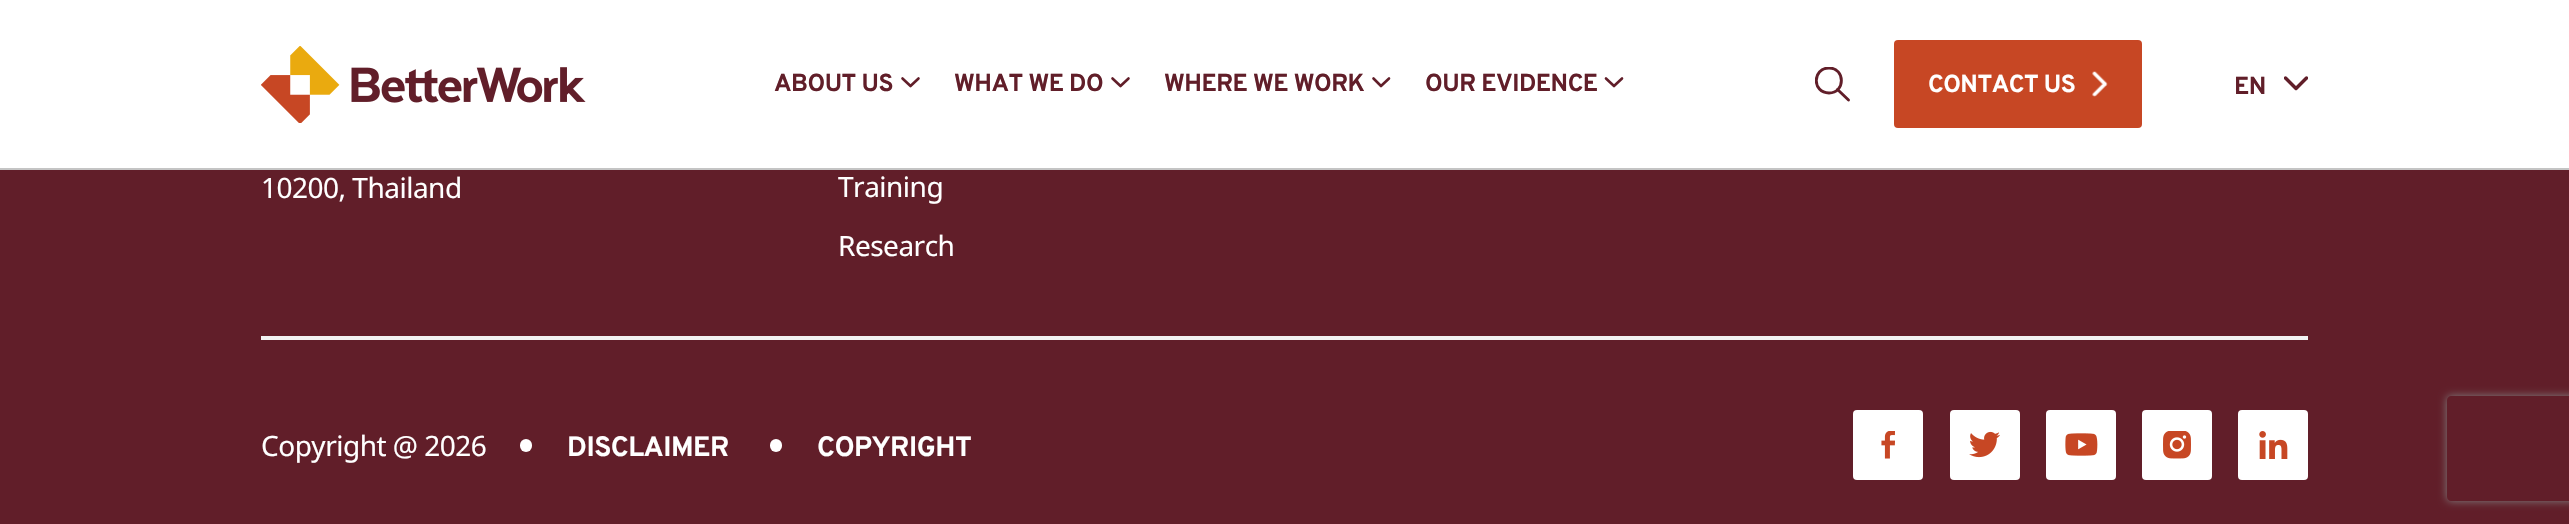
void draw(SkCanvas* canvas) {
	SkPaint paint;
	paint.setAntiAlias(true);
	auto spacedText = [&](const char* s, float x, float y, const SkFont& font, const SkPaint& ink, float letter, float word) {
		std::vector<SkGlyphID> glyphs(font.countText(s, strlen(s), SkTextEncoding::kUTF8));
		std::vector<float> xs(glyphs.size());
		font.textToGlyphs(s, strlen(s), SkTextEncoding::kUTF8, glyphs);
		font.getXPos(glyphs, xs, x);
		float extra = 0;
		for (size_t i = 0; i < glyphs.size(); i++) {
			xs[i] += extra;
			extra += letter + word * (glyphs[i] == font.unicharToGlyph(' '));
		}
		canvas->drawTextBlob(SkTextBlob::MakeFromPosHGlyphs(glyphs, xs, y, font), 0, 0, ink);
	};
	auto svgPath = [&](const char* data, bool evenOdd = false) {
		SkPath result = *SkParsePath::FromSVGString(data);
		if (evenOdd) result.setFillType(SkPathFillType::kEvenOdd);
		return result;
	};
	canvas->clear(0xff611e29);
	paint.setColor(0xffffffff);
	canvas->drawRect(SkRect::MakeXYWH(0, 0, 2569, 168), paint);
	paint.setColor(0xffc4c4c4);
	canvas->drawRect(SkRect::MakeXYWH(0, 168, 2569, 2), paint);
	canvas->drawImageRect(SkImages::DeferredFromEncodedData(SkData::MakeFromFileName("img1.png")), SkRect::MakeXYWH(261, 46, 325, 77), SkSamplingOptions());
	SkFont f1(fontMgr->matchFamilyStyle("Overpass", SkFontStyle::Bold()), 24.5);
	f1.setSubpixel(true);
	paint.setColor(0xff611e29);
	spacedText("ABOUT US", 774, 91, f1, paint, -0.5, 0);
	paint.setStroke(true);
	paint.setStrokeWidth(2.6);
	paint.setStrokeCap(SkPaint::kRound_Cap);
	paint.setStrokeJoin(SkPaint::kRound_Join);
	canvas->drawPath(svgPath("M918.5 78.5L910.5 86M902.5 78.5L910.5 86"), paint);
	paint.setStroke(false);
	spacedText("WHAT WE DO", 954, 91, f1, paint, -0.5, 0);
	paint.setStroke(true);
	canvas->drawPath(svgPath("M1128.5 78.5L1120.5 86M1112.5 78.5L1120.5 86"), paint);
	paint.setStroke(false);
	spacedText("WHERE WE WORK", 1164, 91, f1, paint, -0.5, 0);
	paint.setStroke(true);
	canvas->drawPath(svgPath("M1389 78.5L1381 86M1373.5 78.5L1381 86"), paint);
	paint.setStroke(false);
	spacedText("OUR EVIDENCE", 1425, 91, f1, paint, -0.5, 0);
	paint.setStroke(true);
	canvas->drawPath(svgPath("M1622 78.5L1614 86M1606 78.5L1614 86"), paint);
	canvas->save();
	canvas->clipRect(SkRect::MakeXYWH(1815, 67, 35, 35));
	paint.setStrokeWidth(2.9);
	canvas->drawPath(svgPath("M1829 93C1845.5 93 1845.5 68 1829 68C1812 68 1812 93 1829 93Z"), paint);
	canvas->restore();
	canvas->drawPath(svgPath("M1848.5 100L1837.5 89.5"), paint);
	paint.setStroke(false);
	paint.setColor(0xffc74724);
	canvas->drawRoundRect(SkRect::MakeXYWH(1894, 40, 248, 88), 4, 4, paint);
	paint.setColor(0xffffffff);
	spacedText("CONTACT US", 1928, 92, f1, paint, -0.5, 0);
	canvas->drawImageRect(SkImages::DeferredFromEncodedData(SkData::MakeFromFileName("img2.png")), SkRect::MakeXYWH(2092, 71, 16, 26), SkSamplingOptions());
	paint.setColor(0xff611e29);
	spacedText("EN", 2234, 94, f1, paint, -0.5, 0);
	canvas->save();
	canvas->clipRect(SkRect::MakeXYWH(2284, 75, 24, 16));
	paint.setStroke(true);
	paint.setStrokeWidth(3.5);
	canvas->drawPath(svgPath("M2285.5 78L2296 88.5L2306.5 78"), paint);
	canvas->restore();
	paint.setStroke(false);
	paint.setColor(0xfff2f2f2);
	canvas->drawRect(SkRect::MakeXYWH(261, 336, 2047, 4), paint);
	SkFont f2(fontMgr->matchFamilyStyle("Noto Sans", SkFontStyle::Normal()), 28);
	f2.setSubpixel(true);
	paint.setColor(0xffffffff);
	spacedText("10200, Thailand", 261, 198, f2, paint, -0.5, 0);
	spacedText("Training", 838, 197, f2, paint, -0.5, 0);
	spacedText("Research", 838, 256, f2, paint, -0.5, 0);
	spacedText("Copyright @ 2026", 261, 456, f2, paint, -0.5, 0);
	canvas->drawRoundRect(SkRect::MakeXYWH(520, 439, 12, 13), 6, 6, paint);
	SkFont f3(fontMgr->matchFamilyStyle("Overpass", SkFontStyle::Bold()), 28);
	f3.setSubpixel(true);
	spacedText("DISCLAIMER", 567, 456, f3, paint, -0.5, 0);
	canvas->drawRoundRect(SkRect::MakeXYWH(770, 439, 12, 13), 6, 6, paint);
	spacedText("COPYRIGHT", 817, 456, f3, paint, -0.5, 0);
	canvas->drawRoundRect(SkRect::MakeXYWH(1853, 410, 70, 70), 4, 4, paint);
	canvas->drawImageRect(SkImages::DeferredFromEncodedData(SkData::MakeFromFileName("img3.png")), SkRect::MakeXYWH(1881, 431, 14, 28), SkSamplingOptions());
	canvas->drawRoundRect(SkRect::MakeXYWH(1950, 410, 70, 70), 4, 4, paint);
	canvas->drawImageRect(SkImages::DeferredFromEncodedData(SkData::MakeFromFileName("img4.png")), SkRect::MakeXYWH(1969, 431, 31, 27), SkSamplingOptions());
	canvas->drawRoundRect(SkRect::MakeXYWH(2046, 410, 70, 70), 4, 4, paint);
	canvas->drawImageRect(SkImages::DeferredFromEncodedData(SkData::MakeFromFileName("img5.png")), SkRect::MakeXYWH(2065, 433, 33, 23), SkSamplingOptions());
	canvas->drawRoundRect(SkRect::MakeXYWH(2142, 410, 70, 70), 4, 4, paint);
	canvas->drawImageRect(SkImages::DeferredFromEncodedData(SkData::MakeFromFileName("img6.png")), SkRect::MakeXYWH(2163, 431, 28, 28), SkSamplingOptions());
	canvas->drawRoundRect(SkRect::MakeXYWH(2238, 410, 70, 70), 4, 4, paint);
	canvas->drawImageRect(SkImages::DeferredFromEncodedData(SkData::MakeFromFileName("img7.png")), SkRect::MakeXYWH(2259, 431, 29, 28), SkSamplingOptions());
	canvas->save();
	canvas->clipPath(svgPath("M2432 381H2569V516H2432ZM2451 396H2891C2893 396 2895 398 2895 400V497C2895 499 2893 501 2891 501H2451C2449 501 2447 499 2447 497V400C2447 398 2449 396 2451 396Z", true), true);
	paint.setColor(0xff808080);
	paint.setMaskFilter(SkMaskFilter::MakeBlur(kNormal_SkBlurStyle, 4.5));
	canvas->drawRoundRect(SkRect::MakeXYWH(2447, 396, 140, 105), 4, 4, paint);
	paint.setMaskFilter(nullptr);
	canvas->restore();
}
